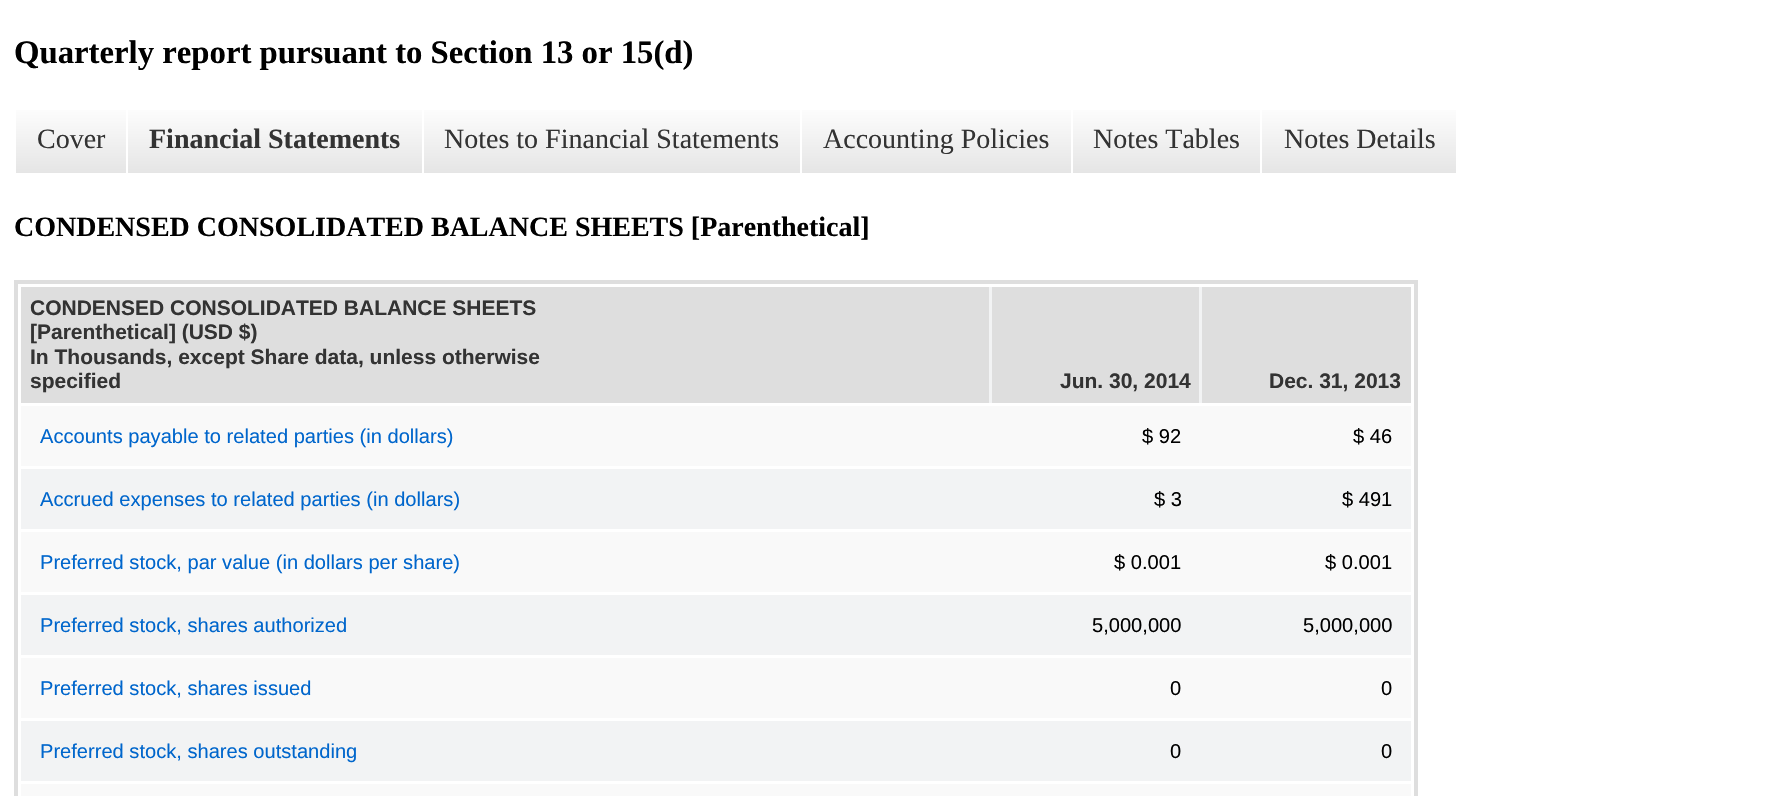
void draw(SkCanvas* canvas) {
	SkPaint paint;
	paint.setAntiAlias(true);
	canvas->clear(0xffffffff);
	SkFont f1(fontMgr->matchFamilyStyle("Liberation Serif", SkFontStyle::Bold()), 32.75);
	f1.setSubpixel(true);
	paint.setColor(0xff000000);
	canvas->drawString("Quarterly report pursuant to Section 13 or 15(d)", 14, 63, f1, paint);
	{
		const SkColor colors[] = {0xffffffff, 0xffe5e5e5};
		const float stops[] = {0, 1};
		const SkPoint ends[] = {{71, 103}, {71, 173}};
		paint.setShader(SkGradientShader::MakeLinear(ends, colors, stops, 2, SkTileMode::kClamp));
		paint.setAlpha(255);
	}
	canvas->drawRect(SkRect::MakeXYWH(16, 110, 110, 63), paint);
	SkFont f2(fontMgr->matchFamilyStyle("Liberation Serif", SkFontStyle::Normal()), 28);
	f2.setSubpixel(true);
	paint.setShader(nullptr);
	paint.setColor(0xff333333);
	canvas->drawString("Cover", 37, 148, f2, paint);
	{
		const SkColor colors[] = {0xffffffff, 0xffe5e5e5};
		const float stops[] = {0, 1};
		const SkPoint ends[] = {{275, 103}, {275, 173}};
		paint.setShader(SkGradientShader::MakeLinear(ends, colors, stops, 2, SkTileMode::kClamp));
		paint.setAlpha(255);
	}
	canvas->drawRect(SkRect::MakeXYWH(128, 110, 294, 63), paint);
	SkFont f3(fontMgr->matchFamilyStyle("Liberation Serif", SkFontStyle::Bold()), 28);
	f3.setSubpixel(true);
	paint.setShader(nullptr);
	paint.setColor(0xff333333);
	canvas->drawString("Financial Statements", 149, 148, f3, paint);
	{
		const SkColor colors[] = {0xffffffff, 0xffe5e5e5};
		const float stops[] = {0, 1};
		const SkPoint ends[] = {{612, 103}, {612, 173}};
		paint.setShader(SkGradientShader::MakeLinear(ends, colors, stops, 2, SkTileMode::kClamp));
		paint.setAlpha(255);
	}
	canvas->drawRect(SkRect::MakeXYWH(424, 110, 376, 63), paint);
	paint.setShader(nullptr);
	paint.setColor(0xff333333);
	canvas->drawString("Notes to Financial Statements", 444, 148, f2, paint);
	{
		const SkColor colors[] = {0xffffffff, 0xffe5e5e5};
		const float stops[] = {0, 1};
		const SkPoint ends[] = {{936, 103}, {936, 173}};
		paint.setShader(SkGradientShader::MakeLinear(ends, colors, stops, 2, SkTileMode::kClamp));
		paint.setAlpha(255);
	}
	canvas->drawRect(SkRect::MakeXYWH(802, 110, 269, 63), paint);
	paint.setShader(nullptr);
	paint.setColor(0xff333333);
	canvas->drawString("Accounting Policies", 823, 148, f2, paint);
	{
		const SkColor colors[] = {0xffffffff, 0xffe5e5e5};
		const float stops[] = {0, 1};
		const SkPoint ends[] = {{1166, 103}, {1166, 173}};
		paint.setShader(SkGradientShader::MakeLinear(ends, colors, stops, 2, SkTileMode::kClamp));
		paint.setAlpha(255);
	}
	canvas->drawRect(SkRect::MakeXYWH(1073, 110, 187, 63), paint);
	paint.setShader(nullptr);
	paint.setColor(0xff333333);
	canvas->drawString("Notes Tables", 1093, 148, f2, paint);
	{
		const SkColor colors[] = {0xffffffff, 0xffe5e5e5};
		const float stops[] = {0, 1};
		const SkPoint ends[] = {{1359, 103}, {1359, 173}};
		paint.setShader(SkGradientShader::MakeLinear(ends, colors, stops, 2, SkTileMode::kClamp));
		paint.setAlpha(255);
	}
	canvas->drawRect(SkRect::MakeXYWH(1262, 110, 194, 63), paint);
	paint.setShader(nullptr);
	paint.setColor(0xff333333);
	canvas->drawString("Notes Details", 1284, 148, f2, paint);
	paint.setColor(0xff000000);
	canvas->drawString("CONDENSED CONSOLIDATED BALANCE SHEETS [Parenthetical]", 14, 236, f3, paint);
	paint.setStroke(true);
	paint.setStrokeWidth(4);
	paint.setColor(0xffdedede);
	canvas->drawRect(SkRect::MakeXYWH(16, 282, 1400, 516), paint);
	paint.setStroke(false);
	paint.setColor(0xfff2f3f4);
	canvas->drawRect(SkRect::MakeXYWH(989, 287, 213, 116), paint);
	paint.setColor(0xffdedede);
	canvas->drawRect(SkRect::MakeXYWH(21, 287, 968, 116), paint);
	SkFont f4(fontMgr->matchFamilyStyle("Liberation Sans", SkFontStyle::Bold()), 21);
	f4.setSubpixel(true);
	paint.setColor(0xff333333);
	canvas->drawString("CONDENSED CONSOLIDATED BALANCE SHEETS", 30, 315, f4, paint);
	canvas->drawString("[Parenthetical] (USD $)", 30, 339, f4, paint);
	canvas->drawString("In Thousands, except Share data, unless otherwise", 30, 364, f4, paint);
	canvas->drawString("specified", 30, 388, f4, paint);
	paint.setColor(0xffdedede);
	canvas->drawRect(SkRect::MakeXYWH(992, 287, 207, 116), paint);
	paint.setColor(0xff333333);
	canvas->drawString("Jun. 30, 2014", 1060, 388, f4, paint);
	paint.setColor(0xffdedede);
	canvas->drawRect(SkRect::MakeXYWH(1202, 287, 209, 116), paint);
	paint.setColor(0xff333333);
	canvas->drawString("Dec. 31, 2013", 1269, 388, f4, paint);
	paint.setColor(0xfff9f9f9);
	canvas->drawRect(SkRect::MakeXYWH(21, 406, 1390, 60), paint);
	SkFont f5(fontMgr->matchFamilyStyle("Liberation Sans", SkFontStyle::Normal()), 20.1);
	f5.setSubpixel(true);
	paint.setColor(0xff0066cc);
	canvas->drawString("Accounts payable to related parties (in dollars)", 40, 443, f5, paint);
	paint.setColor(0xff000000);
	canvas->drawString("$ 92", 1142, 443, f5, paint);
	canvas->drawString("$ 46", 1353, 443, f5, paint);
	paint.setColor(0xfff2f3f4);
	canvas->drawRect(SkRect::MakeXYWH(21, 469, 1390, 60), paint);
	paint.setColor(0xff0066cc);
	canvas->drawString("Accrued expenses to related parties (in dollars)", 40, 506, f5, paint);
	paint.setColor(0xff000000);
	canvas->drawString("$ 3", 1154, 506, f5, paint);
	canvas->drawString("$ 491", 1342, 506, f5, paint);
	paint.setColor(0xfff9f9f9);
	canvas->drawRect(SkRect::MakeXYWH(21, 532, 1390, 60), paint);
	paint.setColor(0xff0066cc);
	canvas->drawString("Preferred stock, par value (in dollars per share)", 40, 569, f5, paint);
	paint.setColor(0xff000000);
	canvas->drawString("$ 0.001", 1114, 569, f5, paint);
	canvas->drawString("$ 0.001", 1325, 569, f5, paint);
	paint.setColor(0xfff2f3f4);
	canvas->drawRect(SkRect::MakeXYWH(21, 595, 1390, 60), paint);
	paint.setColor(0xff0066cc);
	canvas->drawString("Preferred stock, shares authorized", 40, 632, f5, paint);
	paint.setColor(0xff000000);
	canvas->drawString("5,000,000", 1092, 632, f5, paint);
	canvas->drawString("5,000,000", 1303, 632, f5, paint);
	paint.setColor(0xfff9f9f9);
	canvas->drawRect(SkRect::MakeXYWH(21, 658, 1390, 60), paint);
	paint.setColor(0xff0066cc);
	canvas->drawString("Preferred stock, shares issued", 40, 695, f5, paint);
	paint.setColor(0xff000000);
	canvas->drawString("0", 1170, 695, f5, paint);
	canvas->drawString("0", 1381, 695, f5, paint);
	paint.setColor(0xfff2f3f4);
	canvas->drawRect(SkRect::MakeXYWH(21, 721, 1390, 60), paint);
	paint.setColor(0xff0066cc);
	canvas->drawString("Preferred stock, shares outstanding", 40, 758, f5, paint);
	paint.setColor(0xff000000);
	canvas->drawString("0", 1170, 758, f5, paint);
	canvas->drawString("0", 1381, 758, f5, paint);
	paint.setColor(0xfff9f9f9);
	canvas->drawRect(SkRect::MakeXYWH(21, 784, 1390, 12), paint);
}
